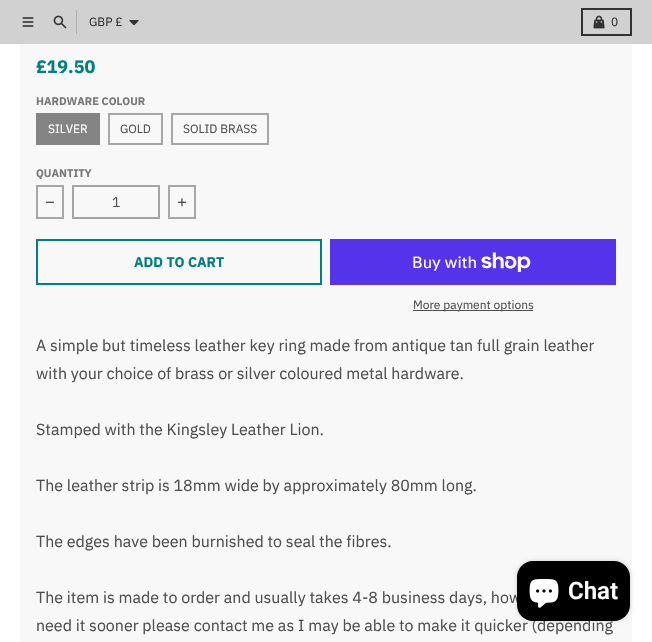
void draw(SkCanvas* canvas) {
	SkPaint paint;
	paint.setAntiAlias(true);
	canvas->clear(0xffffffff);
	paint.setColor(0xffd1d1d1);
	canvas->drawRect(SkRect::MakeXYWH(0, 0, 652, 44), paint);
	canvas->drawImageRect(SkImages::DeferredFromEncodedData(SkData::MakeFromFileName("img1.png")), SkRect::MakeXYWH(22, 17, 12, 10), SkSamplingOptions());
	canvas->drawImageRect(SkImages::DeferredFromEncodedData(SkData::MakeFromFileName("img2.png")), SkRect::MakeXYWH(53, 15, 14, 14), SkSamplingOptions());
	paint.setColor(0xffb1b1b1);
	canvas->drawRect(SkRect::MakeXYWH(76, 10, 1, 24), paint);
	SkFont f1(fontMgr->matchFamilyStyle("IBM Plex Sans", SkFontStyle::Normal()), 12);
	f1.setSubpixel(true);
	paint.setColor(0xff333333);
	canvas->drawString("GBP £", 89, 26, f1, paint);
	canvas->drawImageRect(SkImages::DeferredFromEncodedData(SkData::MakeFromFileName("img3.png")), SkRect::MakeXYWH(129, 20, 10, 6), SkSamplingOptions());
	paint.setStroke(true);
	paint.setStrokeWidth(2);
	canvas->drawRect(SkRect::MakeXYWH(582, 9, 49, 26), paint);
	canvas->drawImageRect(SkImages::DeferredFromEncodedData(SkData::MakeFromFileName("img4.png")), SkRect::MakeXYWH(593, 15, 12, 14), SkSamplingOptions());
	paint.setStroke(false);
	canvas->drawString("0", 611, 26, f1, paint);
	paint.setColor(0xfff8f8f8);
	canvas->drawRect(SkRect::MakeXYWH(20, 44, 612, 598), paint);
	SkFont f2(fontMgr->matchFamilyStyle("IBM Plex Sans", SkFontStyle::Bold()), 18);
	f2.setSubpixel(true);
	paint.setColor(0xff008080);
	canvas->drawString("£19.50", 36, 73, f2, paint);
	SkFont f3(fontMgr->matchFamilyStyle("IBM Plex Sans", SkFontStyle::Bold()), 11);
	f3.setSubpixel(true);
	paint.setColor(0xff797979);
	canvas->drawString("HARDWARE COLOUR", 36, 105, f3, paint);
	paint.setColor(0xff848484);
	canvas->drawRect(SkRect::MakeXYWH(36, 113, 64, 32), paint);
	paint.setColor(0xffffffff);
	canvas->drawString("SILVER", 48, 133, f1, paint);
	paint.setStroke(true);
	paint.setColor(0xffa7a7a7);
	canvas->drawRect(SkRect::MakeXYWH(109, 114, 53, 30), paint);
	paint.setStroke(false);
	paint.setColor(0xff4f4f4f);
	canvas->drawString("GOLD", 120, 133, f1, paint);
	paint.setStroke(true);
	paint.setColor(0xffa7a7a7);
	canvas->drawRect(SkRect::MakeXYWH(172, 114, 96, 30), paint);
	paint.setStroke(false);
	paint.setColor(0xff4f4f4f);
	canvas->drawString("SOLID BRASS", 183, 133, f1, paint);
	paint.setColor(0xff797979);
	canvas->drawString("QUANTITY", 36, 177, f3, paint);
	paint.setStroke(true);
	paint.setColor(0xffa7a7a7);
	canvas->drawRect(SkRect::MakeXYWH(37, 186, 26, 32), paint);
	canvas->drawImageRect(SkImages::DeferredFromEncodedData(SkData::MakeFromFileName("img5.png")), SkRect::MakeXYWH(46, 201, 8, 2), SkSamplingOptions());
	paint.setColor(0xffa4a4a4);
	canvas->drawRect(SkRect::MakeXYWH(73, 186, 86, 32), paint);
	SkFont f4(fontMgr->matchFamilyStyle("IBM Plex Sans", SkFontStyle::Normal()), 14);
	f4.setSubpixel(true);
	paint.setStroke(false);
	paint.setColor(0xff4f4f4f);
	canvas->drawString("1", 112, 207, f4, paint);
	paint.setStroke(true);
	paint.setColor(0xffa7a7a7);
	canvas->drawRect(SkRect::MakeXYWH(169, 186, 26, 32), paint);
	canvas->drawImageRect(SkImages::DeferredFromEncodedData(SkData::MakeFromFileName("img6.png")), SkRect::MakeXYWH(178, 198, 8, 9), SkSamplingOptions());
	paint.setColor(0xff008080);
	canvas->drawRect(SkRect::MakeXYWH(37, 240, 284, 44), paint);
	SkFont f5(fontMgr->matchFamilyStyle("IBM Plex Sans", SkFontStyle::Bold()), 14);
	f5.setSubpixel(true);
	paint.setStroke(false);
	canvas->drawString("ADD TO CART", 134, 267, f5, paint);
	paint.setColor(0xff5433eb);
	canvas->drawRect(SkRect::MakeXYWH(330, 239, 286, 46), paint);
	SkFont f6(fontMgr->matchFamilyStyle("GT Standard", SkFontStyle::Normal()), 16);
	f6.setSubpixel(true);
	paint.setColor(0xffffffff);
	canvas->drawString("Buy with", 412, 268, f6, paint);
	canvas->drawImageRect(SkImages::DeferredFromEncodedData(SkData::MakeFromFileName("img7.png")), SkRect::MakeXYWH(481, 252, 50, 20), SkSamplingOptions());
	paint.setColor(0xff4f4f4f);
	canvas->drawRect(SkRect::MakeXYWH(413, 310, 120, 1), paint);
	canvas->drawString("More payment options", 413, 309, f1, paint);
	SkFont f7(fontMgr->matchFamilyStyle("IBM Plex Sans", SkFontStyle::Normal()), 16);
	f7.setSubpixel(true);
	canvas->drawString("A simple but timeless leather key ring made from antique tan full grain leather", 36, 351, f7, paint);
	canvas->drawString("with your choice of brass or silver coloured metal hardware.", 36, 379, f7, paint);
	canvas->drawString("Stamped with the Kingsley Leather Lion.", 36, 435, f7, paint);
	canvas->drawString("The leather strip is 18mm wide by approximately 80mm long.", 36, 491, f7, paint);
	canvas->drawString("The edges have been burnished to seal the fibres.", 36, 547, f7, paint);
	canvas->drawString("The item is made to order and usually takes 4-8 business days, how", 36, 603, f7, paint);
	canvas->drawString("need it sooner please contact me as I may be able to make it quicker (depending", 36, 631, f7, paint);
	paint.setColor(0x26000000);
	paint.setMaskFilter(SkMaskFilter::MakeBlur(kNormal_SkBlurStyle, 2.5));
	canvas->drawRoundRect(SkRect::MakeXYWH(517, 561, 113, 60), 16, 16, paint);
	paint.setMaskFilter(nullptr);
	paint.setColor(0xff000000);
	canvas->drawRoundRect(SkRect::MakeXYWH(517, 561, 113, 60), 16, 16, paint);
	canvas->drawImageRect(SkImages::DeferredFromEncodedData(SkData::MakeFromFileName("img8.png")), SkRect::MakeXYWH(529, 579, 30, 29), SkSamplingOptions());
	SkFont f8(fontMgr->matchFamilyStyle("Roboto", SkFontStyle(600, SkFontStyle::kNormal_Width, SkFontStyle::kUpright_Slant)), 24);
	f8.setSubpixel(true);
	paint.setColor(0xffffffff);
	canvas->drawString("Chat", 568, 599, f8, paint);
}
